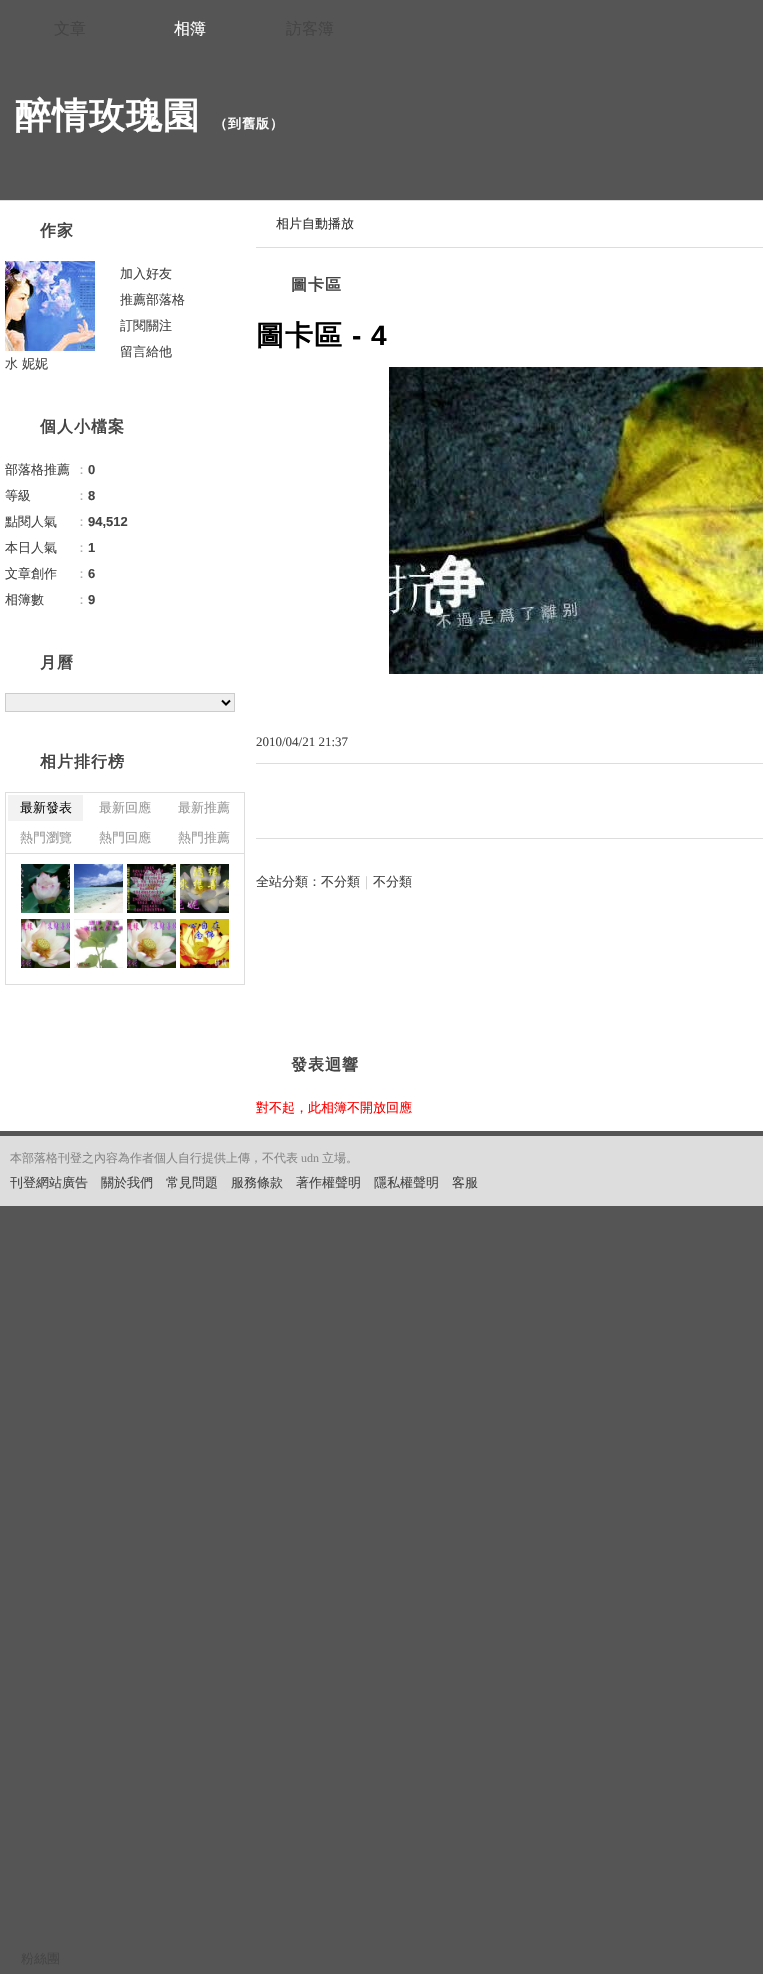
void draw(SkCanvas* canvas) {
	SkPaint paint;
	paint.setAntiAlias(true);
	auto spacedText = [&](const char* s, float x, float y, const SkFont& font, const SkPaint& ink, float letter, float word) {
		std::vector<SkGlyphID> glyphs(font.countText(s, strlen(s), SkTextEncoding::kUTF8));
		std::vector<float> xs(glyphs.size());
		font.textToGlyphs(s, strlen(s), SkTextEncoding::kUTF8, glyphs);
		font.getXPos(glyphs, xs, x);
		float extra = 0;
		for (size_t i = 0; i < glyphs.size(); i++) {
			xs[i] += extra;
			extra += letter + word * (glyphs[i] == font.unicharToGlyph(' '));
		}
		canvas->drawTextBlob(SkTextBlob::MakeFromPosHGlyphs(glyphs, xs, y, font), 0, 0, ink);
	};
	auto svgPath = [&](const char* data, bool evenOdd = false) {
		SkPath result = *SkParsePath::FromSVGString(data);
		if (evenOdd) result.setFillType(SkPathFillType::kEvenOdd);
		return result;
	};
	canvas->clear(0xff555555);
	SkFont f1(fontMgr->matchFamilyStyle("WenQuanYi Zen Hei", SkFontStyle(500, SkFontStyle::kNormal_Width, SkFontStyle::kUpright_Slant)), 16);
	f1.setSubpixel(true);
	paint.setColor(0xff444444);
	canvas->drawString("文章", 54, 34, f1, paint);
	paint.setColor(0xffffffff);
	canvas->drawString("相簿", 174, 34, f1, paint);
	paint.setColor(0xff444444);
	canvas->drawString("訪客簿", 286, 34, f1, paint);
	paint.setColor(0xffdddddd);
	canvas->drawRect(SkRect::MakeXYWH(0, 200, 763, 1), paint);
	SkFont f2(fontMgr->matchFamilyStyle("WenQuanYi Zen Hei", SkFontStyle::Bold()), 36);
	f2.setSubpixel(true);
	paint.setColor(0xffffffff);
	spacedText("醉情玫瑰園", 15, 128, f2, paint, 1, 0);
	SkFont f3(fontMgr->matchFamilyStyle("WenQuanYi Zen Hei", SkFontStyle::Bold()), 13);
	f3.setSubpixel(true);
	spacedText("（到舊版）", 214, 128, f3, paint, 1, 0);
	canvas->drawRect(SkRect::MakeXYWH(0, 201, 763, 930), paint);
	SkFont f4(fontMgr->matchFamilyStyle("WenQuanYi Zen Hei", SkFontStyle::Bold()), 16);
	f4.setSubpixel(true);
	paint.setColor(0xff444444);
	spacedText("作家", 40, 236, f4, paint, 1, 0);
	SkFont f5(fontMgr->matchFamilyStyle("WenQuanYi Zen Hei", SkFontStyle(500, SkFontStyle::kNormal_Width, SkFontStyle::kUpright_Slant)), 13);
	f5.setSubpixel(true);
	canvas->drawString("加入好友", 120, 278, f5, paint);
	canvas->drawString("推薦部落格", 120, 304, f5, paint);
	canvas->drawString("訂閱關注", 120, 330, f5, paint);
	canvas->drawString("留言給他", 120, 356, f5, paint);
	canvas->drawImageRect(SkImages::DeferredFromEncodedData(SkData::MakeFromFileName("img1.png")), SkRect::MakeXYWH(5, 261, 90, 90), SkSamplingOptions());
	canvas->drawString("水 妮妮", 5, 368, f5, paint);
	spacedText("個人小檔案", 40, 432, f4, paint, 1, 0);
	canvas->drawString("部落格推薦", 5, 474, f5, paint);
	paint.setColor(0xffaaaaaa);
	canvas->drawString("：", 75, 474, f5, paint);
	SkFont f6(fontMgr->matchFamilyStyle("Liberation Sans", SkFontStyle::Bold()), 13);
	f6.setSubpixel(true);
	paint.setColor(0xff444444);
	canvas->drawString("0", 88, 474, f6, paint);
	canvas->drawString("等級", 5, 500, f5, paint);
	paint.setColor(0xffaaaaaa);
	canvas->drawString("：", 75, 500, f5, paint);
	paint.setColor(0xff444444);
	canvas->drawString("8", 88, 500, f6, paint);
	canvas->drawString("點閱人氣", 5, 526, f5, paint);
	paint.setColor(0xffaaaaaa);
	canvas->drawString("：", 75, 526, f5, paint);
	paint.setColor(0xff444444);
	canvas->drawString("94,512", 88, 526, f6, paint);
	canvas->drawString("本日人氣", 5, 552, f5, paint);
	paint.setColor(0xffaaaaaa);
	canvas->drawString("：", 75, 552, f5, paint);
	paint.setColor(0xff444444);
	canvas->drawString("1", 88, 552, f6, paint);
	canvas->drawString("文章創作", 5, 578, f5, paint);
	paint.setColor(0xffaaaaaa);
	canvas->drawString("：", 75, 578, f5, paint);
	paint.setColor(0xff444444);
	canvas->drawString("6", 88, 578, f6, paint);
	canvas->drawString("相簿數", 5, 604, f5, paint);
	paint.setColor(0xffaaaaaa);
	canvas->drawString("：", 75, 604, f5, paint);
	paint.setColor(0xff444444);
	canvas->drawString("9", 88, 604, f6, paint);
	spacedText("月曆", 40, 668, f4, paint, 1, 0);
	paint.setColor(0xffefefef);
	canvas->drawRect(SkRect::MakeXYWH(5.5, 693.5, 229, 18), paint);
	paint.setStroke(true);
	paint.setStrokeWidth(1);
	paint.setColor(0xffcccccc);
	canvas->drawRect(SkRect::MakeXYWH(5.5, 693.5, 229, 18), paint);
	paint.setStrokeWidth(2);
	paint.setColor(0xff000000);
	canvas->drawPath(svgPath("M222 700.5L226 704.5L230 700.5"), paint);
	paint.setStroke(false);
	paint.setColor(0xff444444);
	spacedText("相片排行榜", 40, 767, f4, paint, 1, 0);
	paint.setStroke(true);
	paint.setStrokeWidth(1);
	paint.setColor(0xffdddddd);
	canvas->drawRect(SkRect::MakeXYWH(5.5, 792.5, 239, 61), paint);
	paint.setStroke(false);
	paint.setColor(0xfff2f2f2);
	canvas->drawRect(SkRect::MakeXYWH(8, 795, 75, 26), paint);
	paint.setColor(0xff111111);
	canvas->drawString("最新發表", 20, 812, f5, paint);
	paint.setColor(0xff999999);
	canvas->drawString("最新回應", 99, 812, f5, paint);
	canvas->drawString("最新推薦", 178, 812, f5, paint);
	canvas->drawString("熱門瀏覽", 20, 842, f5, paint);
	canvas->drawString("熱門回應", 99, 842, f5, paint);
	canvas->drawString("熱門推薦", 178, 842, f5, paint);
	paint.setColor(0xffdddddd);
	canvas->drawRect(SkRect::MakeXYWH(244, 854, 1, 131), paint);
	canvas->drawRect(SkRect::MakeXYWH(5, 984, 240, 1), paint);
	canvas->drawRect(SkRect::MakeXYWH(5, 854, 1, 131), paint);
	canvas->drawImageRect(SkImages::DeferredFromEncodedData(SkData::MakeFromFileName("img2.png")), SkRect::MakeXYWH(21, 864, 49, 49), SkSamplingOptions());
	canvas->drawImageRect(SkImages::DeferredFromEncodedData(SkData::MakeFromFileName("img3.png")), SkRect::MakeXYWH(74, 864, 49, 49), SkSamplingOptions());
	canvas->drawImageRect(SkImages::DeferredFromEncodedData(SkData::MakeFromFileName("img4.png")), SkRect::MakeXYWH(127, 864, 49, 49), SkSamplingOptions());
	canvas->drawImageRect(SkImages::DeferredFromEncodedData(SkData::MakeFromFileName("img5.png")), SkRect::MakeXYWH(180, 864, 49, 49), SkSamplingOptions());
	canvas->drawImageRect(SkImages::DeferredFromEncodedData(SkData::MakeFromFileName("img6.png")), SkRect::MakeXYWH(21, 919, 49, 49), SkSamplingOptions());
	canvas->drawImageRect(SkImages::DeferredFromEncodedData(SkData::MakeFromFileName("img7.png")), SkRect::MakeXYWH(74, 919, 49, 49), SkSamplingOptions());
	canvas->drawImageRect(SkImages::DeferredFromEncodedData(SkData::MakeFromFileName("img6.png")), SkRect::MakeXYWH(127, 919, 49, 49), SkSamplingOptions());
	canvas->drawImageRect(SkImages::DeferredFromEncodedData(SkData::MakeFromFileName("img8.png")), SkRect::MakeXYWH(180, 919, 49, 49), SkSamplingOptions());
	canvas->drawRect(SkRect::MakeXYWH(256, 247, 507, 1), paint);
	paint.setColor(0xff333333);
	canvas->drawString("相片自動播放", 276, 228, f5, paint);
	paint.setColor(0xff444444);
	spacedText("圖卡區", 291, 290, f4, paint, 1, 0);
	SkFont f7(fontMgr->matchFamilyStyle("WenQuanYi Zen Hei", SkFontStyle::Bold()), 28);
	f7.setSubpixel(true);
	paint.setColor(0xff000000);
	spacedText("圖卡區", 256, 345, f7, paint, 1, 0);
	SkFont f8(fontMgr->matchFamilyStyle("Liberation Sans", SkFontStyle::Bold()), 28);
	f8.setSubpixel(true);
	spacedText("- 4", 352, 345, f8, paint, 1, 0);
	canvas->drawImageRect(SkImages::DeferredFromEncodedData(SkData::MakeFromFileName("img9.png")), SkRect::MakeXYWH(389, 367, 374, 307), SkSamplingOptions());
	SkFont f9(fontMgr->matchFamilyStyle("Liberation Serif", SkFontStyle::Normal()), 13);
	f9.setSubpixel(true);
	paint.setColor(0xff444444);
	canvas->drawString("2010/04/21 21:37", 256, 746, f9, paint);
	paint.setColor(0xffdddddd);
	canvas->drawRect(SkRect::MakeXYWH(256, 763, 507, 1), paint);
	canvas->drawRect(SkRect::MakeXYWH(256, 838, 507, 1), paint);
	paint.setColor(0xff444444);
	canvas->drawString("全站分類：不分類", 256, 886, f5, paint);
	paint.setColor(0xffcccccc);
	canvas->drawString("｜", 360, 886, f5, paint);
	paint.setColor(0xff444444);
	canvas->drawString("不分類", 373, 886, f5, paint);
	spacedText("發表迴響", 291, 1070, f4, paint, 1, 0);
	paint.setColor(0xffff0000);
	canvas->drawString("對不起，此相簿不開放回應", 256, 1112, f5, paint);
	paint.setColor(0xffdddddd);
	canvas->drawRect(SkRect::MakeXYWH(0, 1136, 763, 70), paint);
	SkFont f10(fontMgr->matchFamilyStyle("WenQuanYi Zen Hei", SkFontStyle(500, SkFontStyle::kNormal_Width, SkFontStyle::kUpright_Slant)), 12);
	f10.setSubpixel(true);
	paint.setColor(0xff888888);
	canvas->drawString("本部落格刊登之內容為作者個人自行提供上傳，不代表", 10, 1162, f10, paint);
	SkFont f11(fontMgr->matchFamilyStyle("Liberation Serif", SkFontStyle::Normal()), 12);
	f11.setSubpixel(true);
	canvas->drawString("udn", 301, 1162, f11, paint);
	canvas->drawString("立場。", 322, 1162, f10, paint);
	paint.setColor(0xff444444);
	canvas->drawString("刊登網站廣告", 10, 1187, f5, paint);
	canvas->drawString("關於我們", 101, 1187, f5, paint);
	canvas->drawString("常見問題", 166, 1187, f5, paint);
	canvas->drawString("服務條款", 231, 1187, f5, paint);
	canvas->drawString("著作權聲明", 296, 1187, f5, paint);
	canvas->drawString("隱私權聲明", 374, 1187, f5, paint);
	canvas->drawString("客服", 452, 1187, f5, paint);
	canvas->drawString("粉絲團", 21, 1963, f5, paint);
}
